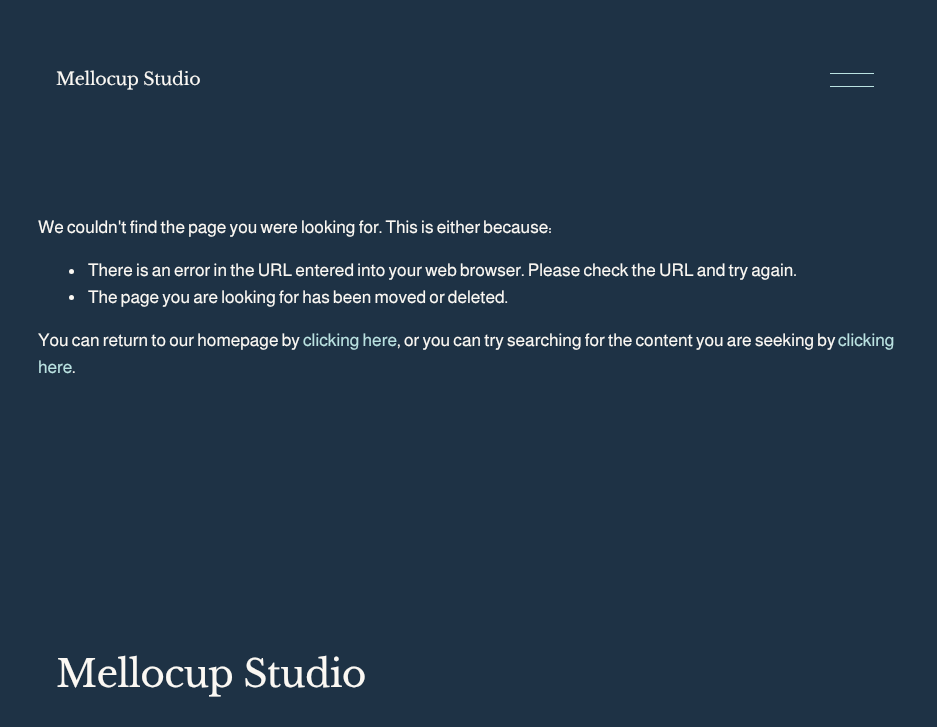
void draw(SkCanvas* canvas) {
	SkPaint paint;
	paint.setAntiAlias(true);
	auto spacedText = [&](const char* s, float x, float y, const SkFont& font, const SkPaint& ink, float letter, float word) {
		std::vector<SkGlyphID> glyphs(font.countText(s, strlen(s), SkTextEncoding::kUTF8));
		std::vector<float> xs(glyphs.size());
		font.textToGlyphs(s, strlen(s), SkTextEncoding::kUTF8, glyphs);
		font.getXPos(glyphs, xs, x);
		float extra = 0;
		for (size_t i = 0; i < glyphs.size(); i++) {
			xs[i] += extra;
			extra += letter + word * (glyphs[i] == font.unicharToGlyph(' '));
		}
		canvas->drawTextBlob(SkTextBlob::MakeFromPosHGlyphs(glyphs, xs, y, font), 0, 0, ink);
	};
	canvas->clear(0xff1e3245);
	SkFont f1(fontMgr->matchFamilyStyle("Libre Baskerville", SkFontStyle::Normal()), 17.5);
	f1.setSubpixel(true);
	paint.setColor(0xfffbf8f3);
	spacedText("Mellocup Studio", 56, 85, f1, paint, -0.3, 0);
	paint.setColor(0xffbae2e1);
	canvas->drawRect(SkRect::MakeXYWH(830, 73, 44, 1), paint);
	canvas->drawRect(SkRect::MakeXYWH(830, 86, 44, 1), paint);
	SkFont f2(fontMgr->matchFamilyStyle("Almarai", SkFontStyle::Normal()), 17.5);
	f2.setSubpixel(true);
	paint.setColor(0xfffbf8f3);
	canvas->drawString("We couldn't find the page you were looking for. This is either because:", 38, 233, f2, paint);
	canvas->drawCircle(71.5, 271.5, 2.5, paint);
	canvas->drawString("There is an error in the URL entered into your web browser. Please check the URL and try again.", 88, 276, f2, paint);
	canvas->drawCircle(71.5, 297.5, 2.5, paint);
	canvas->drawString("The page you are looking for has been moved or deleted.", 88, 303, f2, paint);
	canvas->drawString("You can return to our homepage by", 38, 346, f2, paint);
	paint.setColor(0xffbae2e1);
	canvas->drawString("clicking here", 303, 346, f2, paint);
	paint.setColor(0xfffbf8f3);
	canvas->drawString(", or you can try searching for the content you are seeking by", 397, 346, f2, paint);
	paint.setColor(0xffbae2e1);
	canvas->drawString("clicking", 838, 346, f2, paint);
	canvas->drawString("here", 38, 373, f2, paint);
	paint.setColor(0xfffbf8f3);
	canvas->drawString(".", 72, 373, f2, paint);
	SkFont f3(fontMgr->matchFamilyStyle("Libre Baskerville", SkFontStyle::Normal()), 37.75);
	f3.setSubpixel(true);
	spacedText("Mellocup Studio", 56, 687, f3, paint, -0.75, 0);
}
